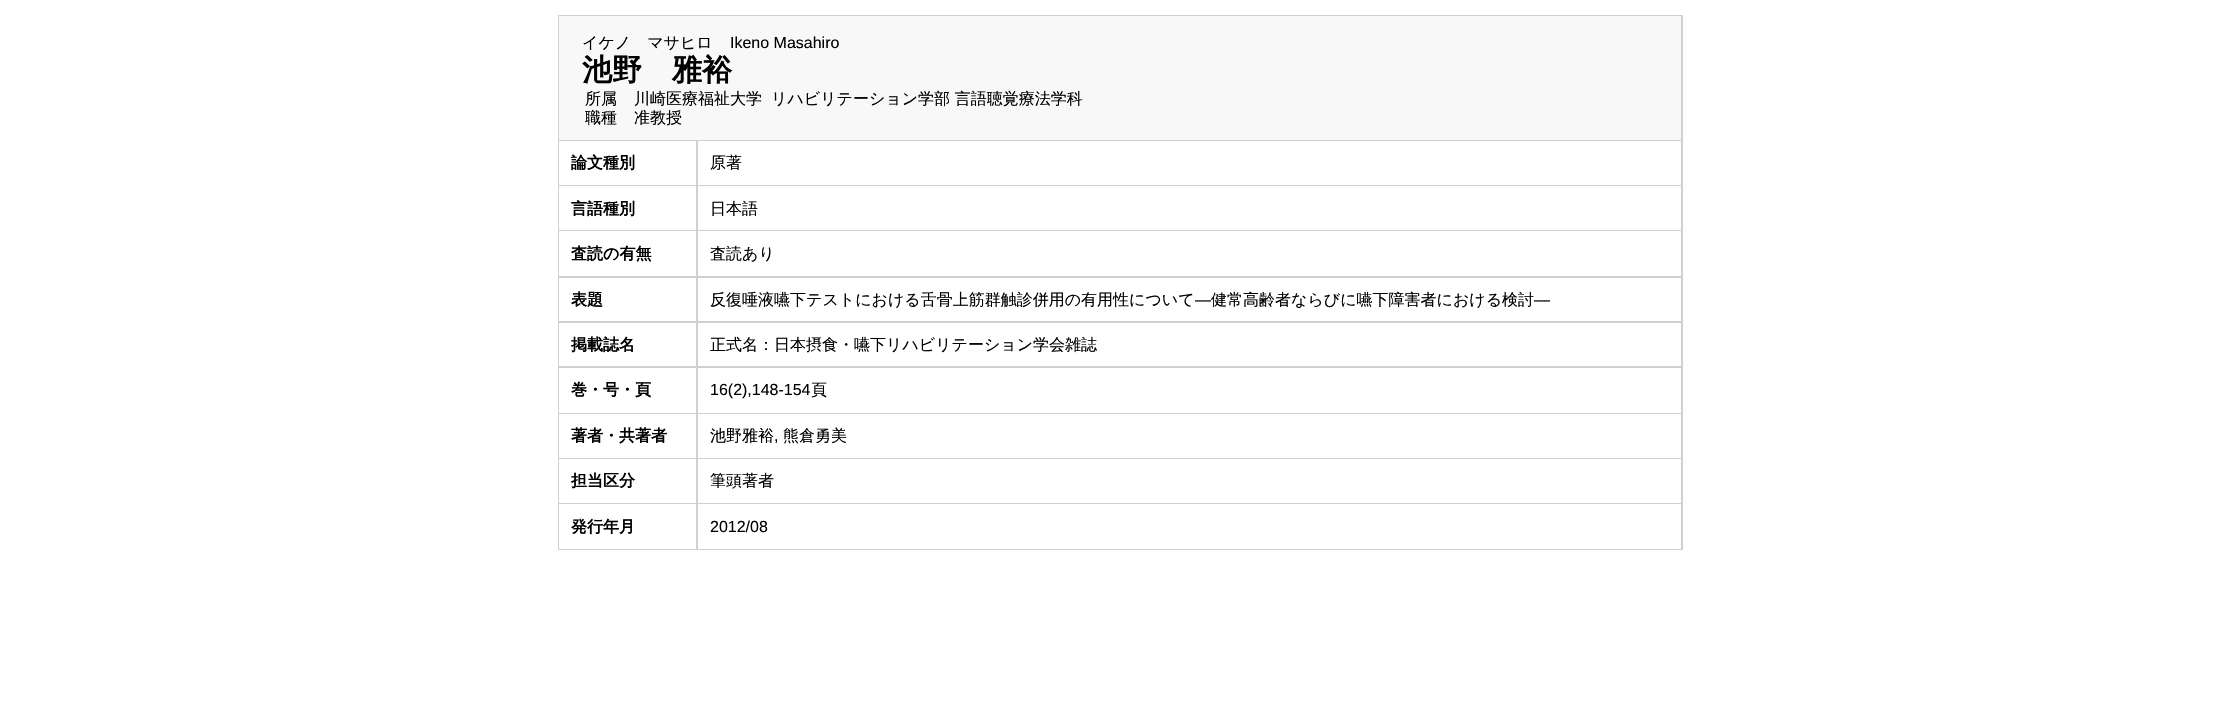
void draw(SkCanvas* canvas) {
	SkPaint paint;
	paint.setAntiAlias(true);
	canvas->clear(0xffffffff);
	paint.setColor(0xffd0d0d0);
	canvas->drawRect(SkRect::MakeXYWH(558, 15, 1125, 535), paint);
	paint.setColor(0xfff8f8f8);
	canvas->drawRect(SkRect::MakeXYWH(559, 16, 1122, 124), paint);
	SkFont f1(fontMgr->matchFamilyStyle("WenQuanYi Zen Hei", SkFontStyle(500, SkFontStyle::kNormal_Width, SkFontStyle::kUpright_Slant)), 16);
	f1.setSubpixel(true);
	paint.setColor(0xff000000);
	canvas->drawString("イケノ　マサヒロ", 582, 48, f1, paint);
	SkFont f2(fontMgr->matchFamilyStyle("Liberation Sans", SkFontStyle::Normal()), 16);
	f2.setSubpixel(true);
	canvas->drawString("Ikeno Masahiro", 730, 48, f2, paint);
	SkFont f3(fontMgr->matchFamilyStyle("WenQuanYi Zen Hei", SkFontStyle::Bold()), 30);
	f3.setSubpixel(true);
	canvas->drawString("池野　雅裕", 582, 80, f3, paint);
	canvas->drawString("所属", 585, 104, f1, paint);
	canvas->drawString("川崎医療福祉大学", 634, 104, f1, paint);
	canvas->drawString("リハビリテーション学部 言語聴覚療法学科", 771, 104, f1, paint);
	canvas->drawString("職種", 585, 123, f1, paint);
	canvas->drawString("准教授", 634, 123, f1, paint);
	paint.setColor(0xffffffff);
	canvas->drawRect(SkRect::MakeXYWH(559, 141, 137, 44), paint);
	SkFont f4(fontMgr->matchFamilyStyle("WenQuanYi Zen Hei", SkFontStyle::Bold()), 16);
	f4.setSubpixel(true);
	paint.setColor(0xff000000);
	canvas->drawString("論文種別", 571, 168, f4, paint);
	paint.setColor(0xffffffff);
	canvas->drawRect(SkRect::MakeXYWH(698, 141, 983, 44), paint);
	paint.setColor(0xff000000);
	canvas->drawString("原著", 710, 168, f1, paint);
	paint.setColor(0xffffffff);
	canvas->drawRect(SkRect::MakeXYWH(559, 186, 137, 44), paint);
	paint.setColor(0xff000000);
	canvas->drawString("言語種別", 571, 214, f4, paint);
	paint.setColor(0xffffffff);
	canvas->drawRect(SkRect::MakeXYWH(698, 186, 983, 44), paint);
	paint.setColor(0xff000000);
	canvas->drawString("日本語", 710, 214, f1, paint);
	paint.setColor(0xffffffff);
	canvas->drawRect(SkRect::MakeXYWH(559, 231, 137, 45), paint);
	paint.setColor(0xff000000);
	canvas->drawString("査読の有無", 571, 259, f4, paint);
	paint.setColor(0xffffffff);
	canvas->drawRect(SkRect::MakeXYWH(698, 231, 983, 45), paint);
	paint.setColor(0xff000000);
	canvas->drawString("査読あり", 710, 259, f1, paint);
	paint.setColor(0xffffffff);
	canvas->drawRect(SkRect::MakeXYWH(559, 278, 137, 43), paint);
	paint.setColor(0xff000000);
	canvas->drawString("表題", 571, 305, f4, paint);
	paint.setColor(0xffffffff);
	canvas->drawRect(SkRect::MakeXYWH(698, 278, 983, 43), paint);
	paint.setColor(0xff000000);
	canvas->drawString("反復唾液嚥下テストにおける舌骨上筋群触診併用の有用性について", 710, 305, f1, paint);
	canvas->drawString("―", 1195, 305, f2, paint);
	canvas->drawString("健常高齢者ならびに嚥下障害者における検討", 1211, 305, f1, paint);
	canvas->drawString("―", 1534, 305, f2, paint);
	paint.setColor(0xffffffff);
	canvas->drawRect(SkRect::MakeXYWH(559, 323, 137, 43), paint);
	paint.setColor(0xff000000);
	canvas->drawString("掲載誌名", 571, 350, f4, paint);
	paint.setColor(0xffffffff);
	canvas->drawRect(SkRect::MakeXYWH(698, 323, 983, 43), paint);
	paint.setColor(0xff000000);
	canvas->drawString("正式名：日本摂食・嚥下リハビリテーション学会雑誌", 710, 350, f1, paint);
	paint.setColor(0xffffffff);
	canvas->drawRect(SkRect::MakeXYWH(559, 368, 137, 45), paint);
	paint.setColor(0xff000000);
	canvas->drawString("巻・号・頁", 571, 395, f4, paint);
	paint.setColor(0xffffffff);
	canvas->drawRect(SkRect::MakeXYWH(698, 368, 983, 45), paint);
	paint.setColor(0xff000000);
	canvas->drawString("16(2),148-154", 710, 395, f2, paint);
	canvas->drawString("頁", 811, 395, f1, paint);
	paint.setColor(0xffffffff);
	canvas->drawRect(SkRect::MakeXYWH(559, 414, 137, 44), paint);
	paint.setColor(0xff000000);
	canvas->drawString("著者・共著者", 571, 441, f4, paint);
	paint.setColor(0xffffffff);
	canvas->drawRect(SkRect::MakeXYWH(698, 414, 983, 44), paint);
	paint.setColor(0xff000000);
	canvas->drawString("池野雅裕", 710, 441, f1, paint);
	canvas->drawString(",", 774, 441, f2, paint);
	canvas->drawString("熊倉勇美", 783, 441, f1, paint);
	paint.setColor(0xffffffff);
	canvas->drawRect(SkRect::MakeXYWH(559, 459, 137, 44), paint);
	paint.setColor(0xff000000);
	canvas->drawString("担当区分", 571, 486, f4, paint);
	paint.setColor(0xffffffff);
	canvas->drawRect(SkRect::MakeXYWH(698, 459, 983, 44), paint);
	paint.setColor(0xff000000);
	canvas->drawString("筆頭著者", 710, 486, f1, paint);
	paint.setColor(0xffffffff);
	canvas->drawRect(SkRect::MakeXYWH(559, 504, 137, 45), paint);
	paint.setColor(0xff000000);
	canvas->drawString("発行年月", 571, 532, f4, paint);
	paint.setColor(0xffffffff);
	canvas->drawRect(SkRect::MakeXYWH(698, 504, 983, 45), paint);
	paint.setColor(0xff000000);
	canvas->drawString("2012/08", 710, 532, f2, paint);
}
